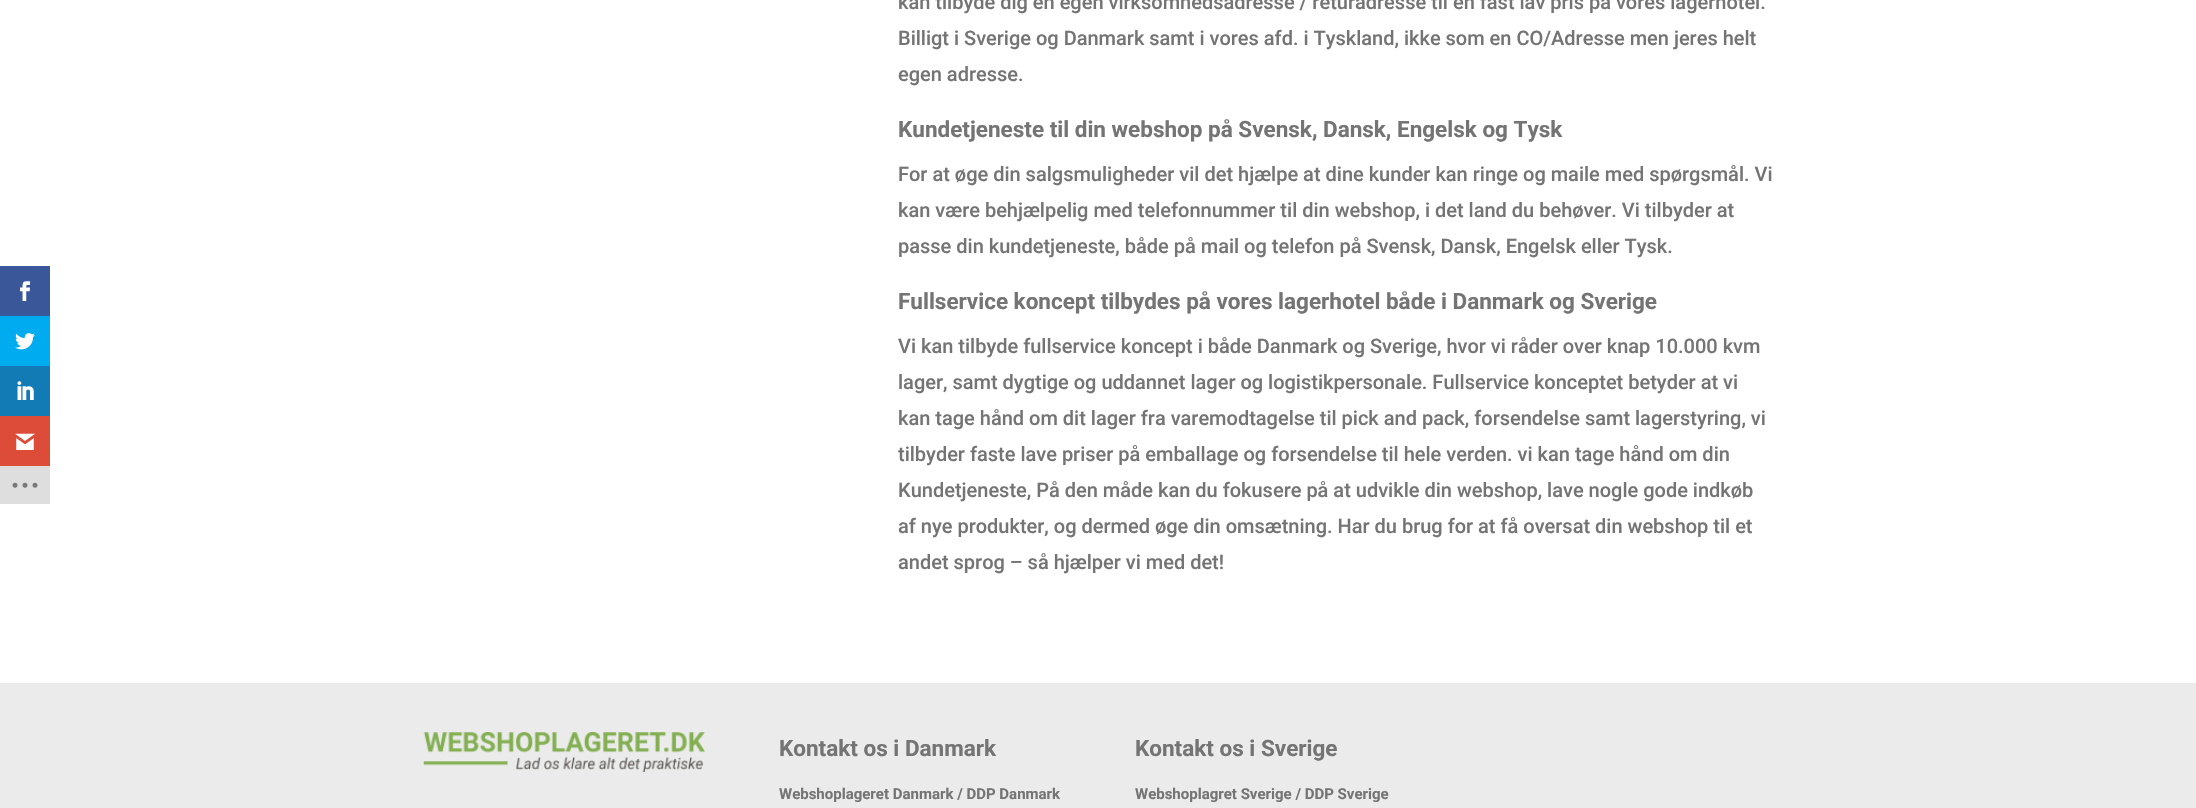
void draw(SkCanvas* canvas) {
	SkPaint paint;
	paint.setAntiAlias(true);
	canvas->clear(0xffffffff);
	paint.setColor(0xff3a579a);
	canvas->drawRect(SkRect::MakeXYWH(0, 266, 50, 50), paint);
	canvas->drawImageRect(SkImages::DeferredFromEncodedData(SkData::MakeFromFileName("img1.png")), SkRect::MakeXYWH(20, 281, 10, 20), SkSamplingOptions());
	paint.setColor(0xff00abf0);
	canvas->drawRect(SkRect::MakeXYWH(0, 316, 50, 50), paint);
	canvas->drawImageRect(SkImages::DeferredFromEncodedData(SkData::MakeFromFileName("img2.png")), SkRect::MakeXYWH(15, 333, 20, 17), SkSamplingOptions());
	paint.setColor(0xff127bb6);
	canvas->drawRect(SkRect::MakeXYWH(0, 366, 50, 50), paint);
	canvas->drawImageRect(SkImages::DeferredFromEncodedData(SkData::MakeFromFileName("img3.png")), SkRect::MakeXYWH(17, 381, 17, 19), SkSamplingOptions());
	paint.setColor(0xffdd4b39);
	canvas->drawRect(SkRect::MakeXYWH(0, 416, 50, 50), paint);
	canvas->drawImageRect(SkImages::DeferredFromEncodedData(SkData::MakeFromFileName("img4.png")), SkRect::MakeXYWH(15, 433, 20, 17), SkSamplingOptions());
	paint.setColor(0xffdedede);
	canvas->drawRect(SkRect::MakeXYWH(0, 466, 50, 38), paint);
	canvas->drawImageRect(SkImages::DeferredFromEncodedData(SkData::MakeFromFileName("img5.png")), SkRect::MakeXYWH(12, 482, 26, 6), SkSamplingOptions());
	SkFont f1(fontMgr->matchFamilyStyle("Roboto", SkFontStyle(500, SkFontStyle::kNormal_Width, SkFontStyle::kUpright_Slant)), 20);
	f1.setSubpixel(true);
	paint.setColor(0xff747474);
	canvas->drawString("kan tilbyde dig en egen virksomhedsadresse / returadresse til en fast lav pris på vores lagerhotel.", 898, 9, f1, paint);
	canvas->drawString("Billigt i Sverige og Danmark samt i vores afd. i Tyskland, ikke som en CO/Adresse men jeres helt", 898, 45, f1, paint);
	canvas->drawString("egen adresse.", 898, 81, f1, paint);
	SkFont f2(fontMgr->matchFamilyStyle("Roboto", SkFontStyle::Bold()), 22.5);
	f2.setSubpixel(true);
	canvas->drawString("Kundetjeneste til din webshop på Svensk, Dansk, Engelsk og Tysk", 898, 137, f2, paint);
	canvas->drawString("For at øge din salgsmuligheder vil det hjælpe at dine kunder kan ringe og maile med spørgsmål. Vi", 898, 181, f1, paint);
	canvas->drawString("kan være behjælpelig med telefonnummer til din webshop, i det land du behøver. Vi tilbyder at", 898, 217, f1, paint);
	canvas->drawString("passe din kundetjeneste, både på mail og telefon på Svensk, Dansk, Engelsk eller Tysk.", 898, 253, f1, paint);
	canvas->drawString("Fullservice koncept tilbydes på vores lagerhotel både i Danmark og Sverige", 898, 309, f2, paint);
	canvas->drawString("Vi kan tilbyde fullservice koncept i både Danmark og Sverige, hvor vi råder over knap 10.000 kvm", 898, 353, f1, paint);
	canvas->drawString("lager, samt dygtige og uddannet lager og logistikpersonale. Fullservice konceptet betyder at vi", 898, 389, f1, paint);
	canvas->drawString("kan tage hånd om dit lager fra varemodtagelse til pick and pack, forsendelse samt lagerstyring, vi", 898, 425, f1, paint);
	canvas->drawString("tilbyder faste lave priser på emballage og forsendelse til hele verden. vi kan tage hånd om din", 898, 461, f1, paint);
	canvas->drawString("Kundetjeneste, På den måde kan du fokusere på at udvikle din webshop, lave nogle gode indkøb", 898, 497, f1, paint);
	canvas->drawString("af nye produkter, og dermed øge din omsætning. Har du brug for at få oversat din webshop til et", 898, 533, f1, paint);
	canvas->drawString("andet sprog – så hjælper vi med det!", 898, 569, f1, paint);
	paint.setColor(0xffebebeb);
	canvas->drawRect(SkRect::MakeXYWH(0, 683, 2196, 125), paint);
	canvas->drawImageRect(SkImages::DeferredFromEncodedData(SkData::MakeFromFileName("img6.png")), SkRect::MakeXYWH(423, 732, 282, 40), SkSamplingOptions());
	paint.setColor(0xff747474);
	canvas->drawString("Kontakt os i Danmark", 779, 756, f2, paint);
	SkFont f3(fontMgr->matchFamilyStyle("Roboto", SkFontStyle::Bold()), 15);
	f3.setSubpixel(true);
	canvas->drawString("Webshoplageret Danmark / DDP Danmark", 779, 799, f3, paint);
	canvas->drawString("Kontakt os i Sverige", 1135, 756, f2, paint);
	canvas->drawString("Webshoplagret Sverige / DDP Sverige", 1135, 799, f3, paint);
}
